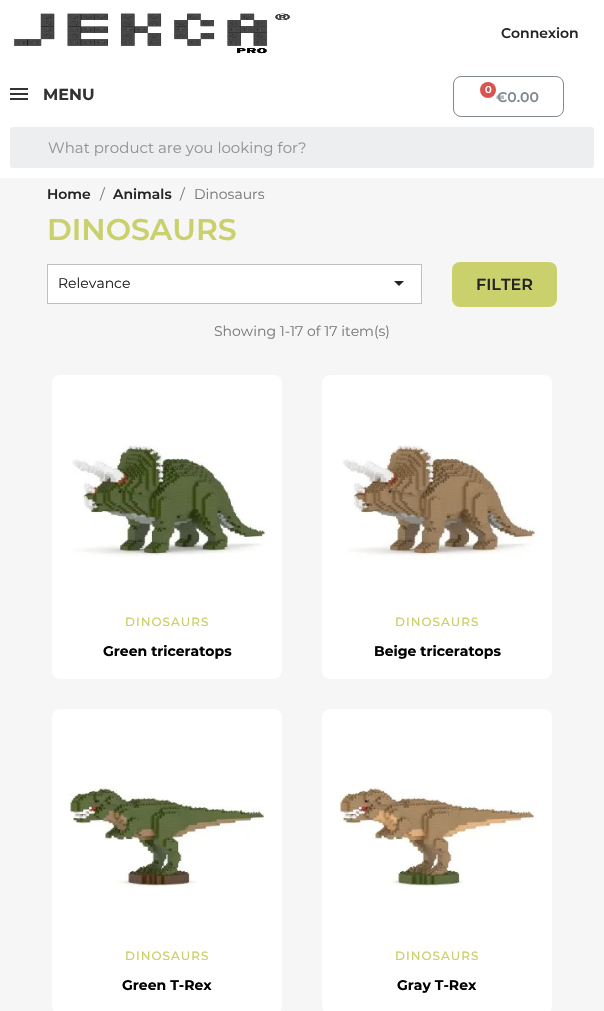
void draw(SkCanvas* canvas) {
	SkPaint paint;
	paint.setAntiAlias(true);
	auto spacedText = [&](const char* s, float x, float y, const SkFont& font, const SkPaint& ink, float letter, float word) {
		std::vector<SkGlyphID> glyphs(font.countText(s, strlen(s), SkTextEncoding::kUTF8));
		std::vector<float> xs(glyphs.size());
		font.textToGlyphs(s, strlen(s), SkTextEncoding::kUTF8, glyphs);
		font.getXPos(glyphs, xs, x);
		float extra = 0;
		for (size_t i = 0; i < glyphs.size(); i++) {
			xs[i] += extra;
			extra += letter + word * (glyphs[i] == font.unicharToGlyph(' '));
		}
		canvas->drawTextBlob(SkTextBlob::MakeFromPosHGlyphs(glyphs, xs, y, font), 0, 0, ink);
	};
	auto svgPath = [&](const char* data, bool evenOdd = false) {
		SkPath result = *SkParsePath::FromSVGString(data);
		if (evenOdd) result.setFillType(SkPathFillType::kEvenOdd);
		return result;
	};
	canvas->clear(0xffffffff);
	canvas->drawImageRect(SkImages::DeferredFromEncodedData(SkData::MakeFromFileName("img1.png")), SkRect::MakeXYWH(14, 13, 277, 41), SkSamplingOptions());
	SkFont f1(fontMgr->matchFamilyStyle("Montserrat", SkFontStyle(600, SkFontStyle::kNormal_Width, SkFontStyle::kUpright_Slant)), 14);
	f1.setSubpixel(true);
	paint.setColor(0xff232323);
	canvas->drawString("Connexion", 501, 38, f1, paint);
	paint.setColor(0xff333333);
	canvas->drawRect(SkRect::MakeXYWH(10, 88, 18, 2), paint);
	canvas->drawRect(SkRect::MakeXYWH(10, 93, 18, 2), paint);
	canvas->drawRect(SkRect::MakeXYWH(10, 98, 18, 2), paint);
	SkFont f2(fontMgr->matchFamilyStyle("Montserrat", SkFontStyle::Bold()), 16);
	f2.setSubpixel(true);
	canvas->drawString("MENU", 43, 100, f2, paint);
	paint.setStroke(true);
	paint.setStrokeWidth(1);
	paint.setColor(0xff818a91);
	canvas->drawRoundRect(SkRect::MakeXYWH(453.5, 76.5, 110, 40), 7.5, 7.5, paint);
	paint.setStroke(false);
	paint.setColor(0xffd9534f);
	canvas->drawCircle(488, 90, 8, paint);
	SkFont f3(fontMgr->matchFamilyStyle("Montserrat", SkFontStyle(600, SkFontStyle::kNormal_Width, SkFontStyle::kUpright_Slant)), 10);
	f3.setSubpixel(true);
	paint.setColor(0xffffffff);
	canvas->drawString("0", 485, 93, f3, paint);
	paint.setColor(0xff818a91);
	canvas->drawString("€0.00", 496, 102, f1, paint);
	paint.setColor(0xffeceeef);
	canvas->drawRoundRect(SkRect::MakeXYWH(10, 127, 584, 41), 3, 3, paint);
	SkFont f4(fontMgr->matchFamilyStyle("Montserrat", SkFontStyle::Normal()), 15);
	f4.setSubpixel(true);
	paint.setColor(0xff919597);
	canvas->drawString("What product are you looking for?", 48, 153, f4, paint);
	paint.setColor(0xfff6f6f6);
	canvas->drawRect(SkRect::MakeXYWH(0, 178, 604, 833), paint);
	paint.setColor(0xff232323);
	canvas->drawString("Home", 47, 199, f1, paint);
	SkFont f5(fontMgr->matchFamilyStyle("Montserrat", SkFontStyle::Normal()), 14);
	f5.setSubpixel(true);
	paint.setColor(0xff7a7a7a);
	canvas->drawString("/", 100, 199, f5, paint);
	paint.setColor(0xff232323);
	canvas->drawString("Animals", 113, 199, f1, paint);
	paint.setColor(0xff7a7a7a);
	canvas->drawString("/", 180, 199, f5, paint);
	canvas->drawString("Dinosaurs", 194, 199, f5, paint);
	SkFont f6(fontMgr->matchFamilyStyle("Montserrat", SkFontStyle(600, SkFontStyle::kNormal_Width, SkFontStyle::kUpright_Slant)), 30);
	f6.setSubpixel(true);
	paint.setColor(0xffcad06b);
	canvas->drawString("DINOSAURS", 47, 240, f6, paint);
	paint.setColor(0xffffffff);
	canvas->drawRect(SkRect::MakeXYWH(47.5, 264.5, 374, 39), paint);
	paint.setStroke(true);
	paint.setColor(0xffbfbfbf);
	canvas->drawRect(SkRect::MakeXYWH(47.5, 264.5, 374, 39), paint);
	paint.setStroke(false);
	paint.setColor(0xff232323);
	canvas->drawString("Relevance", 58, 288, f5, paint);
	canvas->drawPath(svgPath("M394 281H404L399 286Z"), paint);
	paint.setColor(0xffcad06b);
	canvas->drawRoundRect(SkRect::MakeXYWH(452, 262, 105, 45), 8, 8, paint);
	SkFont f7(fontMgr->matchFamilyStyle("Montserrat", SkFontStyle(600, SkFontStyle::kNormal_Width, SkFontStyle::kUpright_Slant)), 16);
	f7.setSubpixel(true);
	paint.setColor(0xff232323);
	canvas->drawString("FILTER", 476, 290, f7, paint);
	paint.setColor(0xff7a7a7a);
	canvas->drawString("Showing 1-17 of 17 item(s)", 214, 336, f5, paint);
	paint.setColor(0xffffffff);
	canvas->drawRoundRect(SkRect::MakeXYWH(52, 375, 230, 304), 8, 8, paint);
	canvas->drawImageRect(SkImages::DeferredFromEncodedData(SkData::MakeFromFileName("img2.png")), SkRect::MakeXYWH(72, 445, 195, 112), SkSamplingOptions());
	SkFont f8(fontMgr->matchFamilyStyle("Montserrat", SkFontStyle(500, SkFontStyle::kNormal_Width, SkFontStyle::kUpright_Slant)), 12);
	f8.setSubpixel(true);
	paint.setColor(0xffcad06b);
	spacedText("DINOSAURS", 125, 626, f8, paint, 1, 0);
	SkFont f9(fontMgr->matchFamilyStyle("Montserrat", SkFontStyle::Bold()), 14);
	f9.setSubpixel(true);
	paint.setColor(0xff000000);
	canvas->drawString("Green triceratops", 103, 656, f9, paint);
	paint.setColor(0xffffffff);
	canvas->drawRoundRect(SkRect::MakeXYWH(322, 375, 230, 304), 8, 8, paint);
	canvas->drawImageRect(SkImages::DeferredFromEncodedData(SkData::MakeFromFileName("img3.png")), SkRect::MakeXYWH(342, 445, 195, 115), SkSamplingOptions());
	paint.setColor(0xffcad06b);
	spacedText("DINOSAURS", 395, 626, f8, paint, 1, 0);
	paint.setColor(0xff000000);
	canvas->drawString("Beige triceratops", 374, 656, f9, paint);
	paint.setColor(0xffffffff);
	canvas->drawRoundRect(SkRect::MakeXYWH(52, 709, 230, 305), 8, 8, paint);
	canvas->drawImageRect(SkImages::DeferredFromEncodedData(SkData::MakeFromFileName("img4.png")), SkRect::MakeXYWH(68, 786, 196, 101), SkSamplingOptions());
	paint.setColor(0xffcad06b);
	spacedText("DINOSAURS", 125, 960, f8, paint, 1, 0);
	paint.setColor(0xff000000);
	canvas->drawString("Green T-Rex", 122, 990, f9, paint);
	paint.setColor(0xffffffff);
	canvas->drawRoundRect(SkRect::MakeXYWH(322, 709, 230, 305), 8, 8, paint);
	canvas->drawImageRect(SkImages::DeferredFromEncodedData(SkData::MakeFromFileName("img5.png")), SkRect::MakeXYWH(338, 786, 196, 101), SkSamplingOptions());
	paint.setColor(0xffcad06b);
	spacedText("DINOSAURS", 395, 960, f8, paint, 1, 0);
	paint.setColor(0xff000000);
	canvas->drawString("Gray T-Rex", 397, 990, f9, paint);
}
